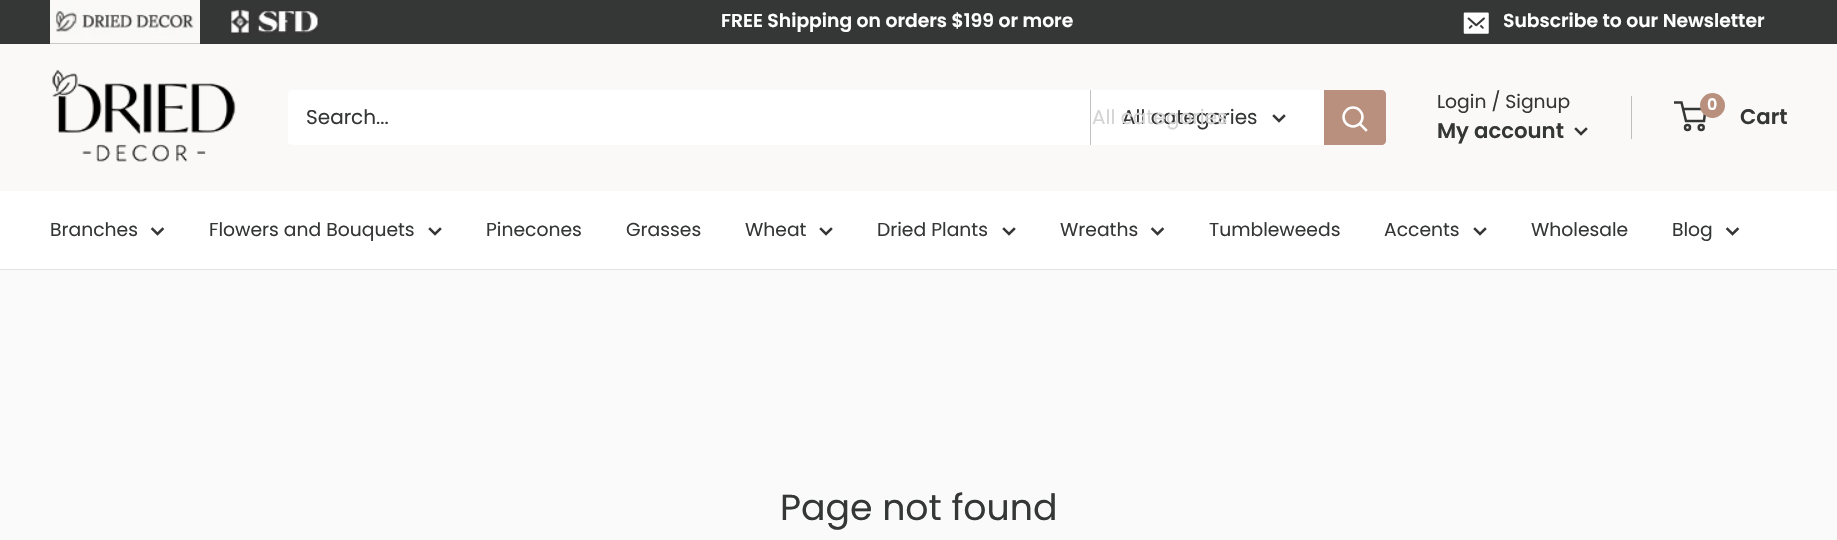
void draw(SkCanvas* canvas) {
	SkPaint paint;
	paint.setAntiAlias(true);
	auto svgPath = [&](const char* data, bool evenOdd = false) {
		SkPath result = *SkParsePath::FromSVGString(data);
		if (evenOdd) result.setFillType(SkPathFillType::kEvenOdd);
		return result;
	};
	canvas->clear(0xfffafafa);
	paint.setColor(0xff353636);
	canvas->drawRect(SkRect::MakeXYWH(0, 0, 1837, 44), paint);
	canvas->drawImageRect(SkImages::DeferredFromEncodedData(SkData::MakeFromFileName("img1.png")), SkRect::MakeXYWH(50, 0, 150, 44), SkSamplingOptions());
	canvas->drawImageRect(SkImages::DeferredFromEncodedData(SkData::MakeFromFileName("img2.png")), SkRect::MakeXYWH(231, 9, 88, 26), SkSamplingOptions());
	SkFont f1(fontMgr->matchFamilyStyle("Poppins", SkFontStyle(600, SkFontStyle::kNormal_Width, SkFontStyle::kUpright_Slant)), 18.75);
	f1.setSubpixel(true);
	paint.setColor(0xffffffff);
	canvas->drawString("FREE Shipping on orders $199 or more", 721, 27, f1, paint);
	canvas->drawImageRect(SkImages::DeferredFromEncodedData(SkData::MakeFromFileName("img3.png")), SkRect::MakeXYWH(1463, 12, 26, 22), SkSamplingOptions());
	canvas->drawString("Subscribe to our Newsletter", 1503, 27, f1, paint);
	paint.setColor(0xfffaf9f7);
	canvas->drawRect(SkRect::MakeXYWH(0, 44, 1837, 147), paint);
	canvas->drawImageRect(SkImages::DeferredFromEncodedData(SkData::MakeFromFileName("img4.png")), SkRect::MakeXYWH(52, 69, 184, 93), SkSamplingOptions());
	paint.setColor(0xffffffff);
	canvas->drawRoundRect(SkRect::MakeXYWH(288, 90, 1098, 55), 4, 4, paint);
	SkFont f2(fontMgr->matchFamilyStyle("Poppins", SkFontStyle::Normal()), 20);
	f2.setSubpixel(true);
	paint.setColor(0xff353636);
	canvas->drawString("Search...", 306, 124, f2, paint);
	paint.setColor(0xffc2c2c2);
	canvas->drawRect(SkRect::MakeXYWH(1090, 90, 1, 55), paint);
	paint.setColor(0xff353636);
	canvas->drawString("All categories", 1122, 124, f2, paint);
	paint.setColor(0xffd4d4d4);
	canvas->drawString("All categories", 1092, 124, f2, paint);
	paint.setStroke(true);
	paint.setStrokeWidth(2.5);
	paint.setStrokeCap(SkPaint::kSquare_Cap);
	paint.setColor(0xff353636);
	canvas->drawPath(svgPath("M1284 116L1279 121L1274 116"), paint);
	paint.setStroke(false);
	paint.setColor(0xffb9907e);
	canvas->drawPath(svgPath("M1324 90H1382C1384 90 1386 92 1386 94V141C1386 143 1384 145 1382 145H1324Z"), paint);
	paint.setStroke(true);
	paint.setColor(0xffffffff);
	canvas->drawPath(svgPath("M1366 130L1360 124"), paint);
	paint.setStrokeCap(SkPaint::kButt_Cap);
	canvas->drawCircle(1353, 117, 9.5, paint);
	SkFont f3(fontMgr->matchFamilyStyle("Poppins", SkFontStyle::Normal()), 18.75);
	f3.setSubpixel(true);
	paint.setStroke(false);
	paint.setColor(0xff353636);
	canvas->drawString("Login / Signup", 1437, 108, f3, paint);
	paint.setColor(0xffbebebc);
	canvas->drawRect(SkRect::MakeXYWH(1631, 96, 1, 43), paint);
	SkFont f4(fontMgr->matchFamilyStyle("Poppins", SkFontStyle(600, SkFontStyle::kNormal_Width, SkFontStyle::kUpright_Slant)), 21.25);
	f4.setSubpixel(true);
	paint.setColor(0xff353636);
	canvas->drawString("My account", 1437, 138, f4, paint);
	paint.setStroke(true);
	paint.setStrokeCap(SkPaint::kSquare_Cap);
	canvas->drawPath(svgPath("M1586 129L1581 134L1576 129"), paint);
	paint.setStrokeCap(SkPaint::kButt_Cap);
	canvas->drawCircle(1687.5, 127.5, 2.5, paint);
	canvas->drawCircle(1701.2, 127.5, 2.5, paint);
	canvas->drawPath(svgPath("M1683 109H1705.5L1704 121H1686L1681.5 102.5H1674"), paint);
	paint.setStroke(false);
	paint.setColor(0xffb9907e);
	canvas->drawCircle(1712.5, 105.5, 12.5, paint);
	SkFont f5(fontMgr->matchFamilyStyle("Poppins", SkFontStyle(600, SkFontStyle::kNormal_Width, SkFontStyle::kUpright_Slant)), 16);
	f5.setSubpixel(true);
	paint.setColor(0xffffffff);
	canvas->drawString("0", 1707, 110, f5, paint);
	paint.setColor(0xff353636);
	canvas->drawString("Cart", 1740, 124, f4, paint);
	paint.setColor(0xffffffff);
	canvas->drawRect(SkRect::MakeXYWH(0, 191, 1837, 78), paint);
	paint.setColor(0xffe1e3e4);
	canvas->drawRect(SkRect::MakeXYWH(0, 269, 1837, 1), paint);
	paint.setColor(0xff353636);
	canvas->drawString("Branches", 50, 236, f3, paint);
	paint.setStroke(true);
	paint.setStrokeCap(SkPaint::kSquare_Cap);
	canvas->drawPath(svgPath("M162.5 229L157.5 234L152.5 229"), paint);
	paint.setStroke(false);
	canvas->drawString("Flowers and Bouquets", 209, 236, f3, paint);
	paint.setStroke(true);
	canvas->drawPath(svgPath("M440 229L435 234L430 229"), paint);
	paint.setStroke(false);
	canvas->drawString("Pinecones", 486, 236, f3, paint);
	canvas->drawString("Grasses", 626, 236, f3, paint);
	canvas->drawString("Wheat", 745, 236, f3, paint);
	paint.setStroke(true);
	canvas->drawPath(svgPath("M831 229L826 234L821 229"), paint);
	paint.setStroke(false);
	canvas->drawString("Dried Plants", 877, 236, f3, paint);
	paint.setStroke(true);
	canvas->drawPath(svgPath("M1014 229L1009 234L1004 229"), paint);
	paint.setStroke(false);
	canvas->drawString("Wreaths", 1060, 236, f3, paint);
	paint.setStroke(true);
	canvas->drawPath(svgPath("M1162.5 229L1157.5 234L1152.5 229"), paint);
	paint.setStroke(false);
	canvas->drawString("Tumbleweeds", 1209, 236, f3, paint);
	canvas->drawString("Accents", 1384, 236, f3, paint);
	paint.setStroke(true);
	canvas->drawPath(svgPath("M1485 229L1480 234L1475 229"), paint);
	paint.setStroke(false);
	canvas->drawString("Wholesale", 1531, 236, f3, paint);
	canvas->drawString("Blog", 1672, 236, f3, paint);
	paint.setStroke(true);
	canvas->drawPath(svgPath("M1737.5 229L1732.5 234L1727.5 229"), paint);
	SkFont f6(fontMgr->matchFamilyStyle("Poppins", SkFontStyle::Normal()), 36.25);
	f6.setSubpixel(true);
	paint.setStroke(false);
	canvas->drawString("Page not found", 780, 520, f6, paint);
}
